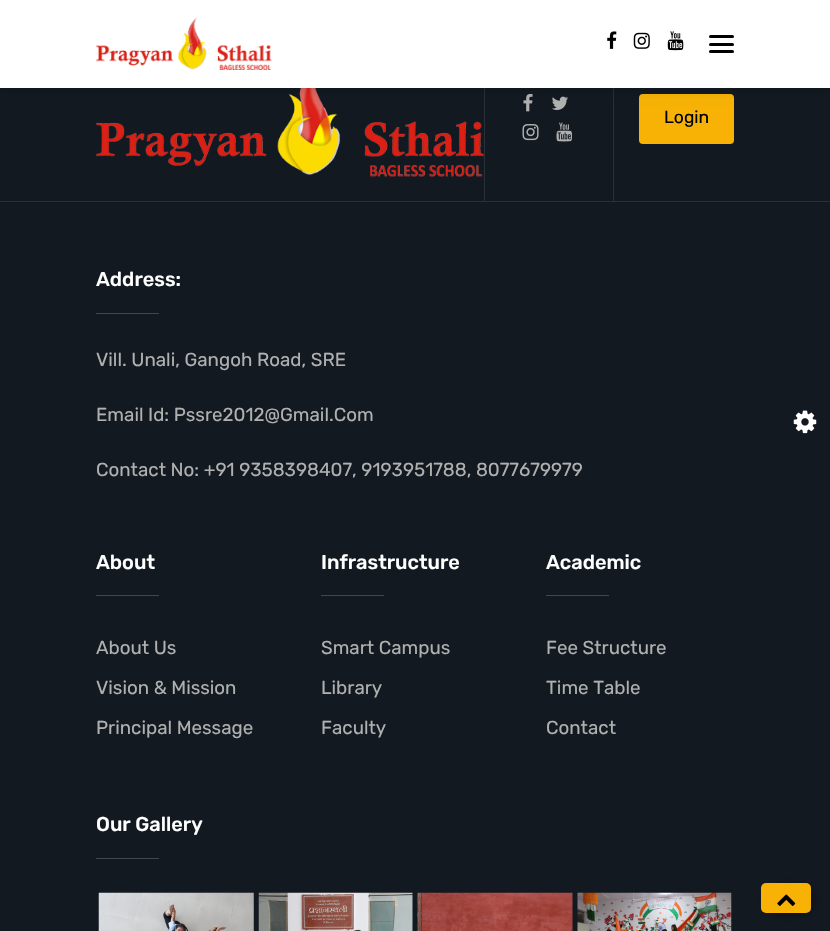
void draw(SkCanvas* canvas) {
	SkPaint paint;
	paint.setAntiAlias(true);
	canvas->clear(0xff121921);
	canvas->drawImageRect(SkImages::DeferredFromEncodedData(SkData::MakeFromFileName("img5.png")), SkRect::MakeXYWH(96, 88, 388, 89), SkSamplingOptions());
	paint.setColor(0xff2a3037);
	canvas->drawRect(SkRect::MakeXYWH(484, 88, 1, 113), paint);
	canvas->drawImageRect(SkImages::DeferredFromEncodedData(SkData::MakeFromFileName("img6.png")), SkRect::MakeXYWH(523, 93, 10, 19), SkSamplingOptions());
	canvas->drawImageRect(SkImages::DeferredFromEncodedData(SkData::MakeFromFileName("img7.png")), SkRect::MakeXYWH(551, 96, 17, 14), SkSamplingOptions());
	canvas->drawRect(SkRect::MakeXYWH(613, 88, 1, 113), paint);
	paint.setColor(0xfff7b205);
	canvas->drawRoundRect(SkRect::MakeXYWH(639, 94, 95, 50), 4, 4, paint);
	paint.setColor(0x33000000);
	paint.setMaskFilter(SkMaskFilter::MakeBlur(kNormal_SkBlurStyle, 6));
	canvas->drawRect(SkRect::MakeXYWH(0, 0, 830, 88), paint);
	paint.setMaskFilter(nullptr);
	paint.setColor(0xffffffff);
	canvas->drawRect(SkRect::MakeXYWH(0, 0, 830, 88), paint);
	canvas->drawImageRect(SkImages::DeferredFromEncodedData(SkData::MakeFromFileName("img1.png")), SkRect::MakeXYWH(96, 17, 176, 53), SkSamplingOptions());
	canvas->drawImageRect(SkImages::DeferredFromEncodedData(SkData::MakeFromFileName("img2.png")), SkRect::MakeXYWH(607, 31, 10, 18), SkSamplingOptions());
	canvas->drawImageRect(SkImages::DeferredFromEncodedData(SkData::MakeFromFileName("img3.png")), SkRect::MakeXYWH(633, 32, 17, 17), SkSamplingOptions());
	canvas->drawImageRect(SkImages::DeferredFromEncodedData(SkData::MakeFromFileName("img4.png")), SkRect::MakeXYWH(667, 31, 17, 20), SkSamplingOptions());
	paint.setColor(0xff000000);
	canvas->drawRoundRect(SkRect::MakeXYWH(709, 35, 25, 3), 1.5, 1.5, paint);
	canvas->drawRoundRect(SkRect::MakeXYWH(709, 43, 25, 3), 1.5, 1.5, paint);
	canvas->drawRoundRect(SkRect::MakeXYWH(709, 50, 25, 3), 1.5, 1.5, paint);
	paint.setColor(0xff2a3037);
	canvas->drawRect(SkRect::MakeXYWH(0, 201, 830, 1), paint);
	canvas->drawImageRect(SkImages::DeferredFromEncodedData(SkData::MakeFromFileName("img8.png")), SkRect::MakeXYWH(522, 124, 17, 17), SkSamplingOptions());
	canvas->drawImageRect(SkImages::DeferredFromEncodedData(SkData::MakeFromFileName("img9.png")), SkRect::MakeXYWH(556, 122, 16, 20), SkSamplingOptions());
	SkFont f1(fontMgr->matchFamilyStyle("Rubik", SkFontStyle::Normal()), 17.5);
	f1.setSubpixel(true);
	paint.setColor(0xff000000);
	canvas->drawString("Login", 664, 123, f1, paint);
	SkFont f2(fontMgr->matchFamilyStyle("Rubik", SkFontStyle(500, SkFontStyle::kNormal_Width, SkFontStyle::kUpright_Slant)), 20);
	f2.setSubpixel(true);
	paint.setColor(0xffffffff);
	canvas->drawString("Address:", 96, 286, f2, paint);
	paint.setColor(0xff41474d);
	canvas->drawRect(SkRect::MakeXYWH(96, 313, 63, 1), paint);
	SkFont f3(fontMgr->matchFamilyStyle("Rubik", SkFontStyle::Normal()), 18.75);
	f3.setSubpixel(true);
	paint.setColor(0xffb0b0b0);
	canvas->drawString("Vill. Unali, Gangoh Road, SRE", 96, 366, f3, paint);
	canvas->drawString("Email Id: Pssre2012@Gmail.Com", 96, 421, f3, paint);
	canvas->drawString("Contact No: +91 9358398407, 9193951788, 8077679979", 96, 476, f3, paint);
	paint.setColor(0xffffffff);
	canvas->drawString("About", 96, 569, f2, paint);
	paint.setColor(0xff41474d);
	canvas->drawRect(SkRect::MakeXYWH(96, 595, 63, 1), paint);
	paint.setColor(0xffb0b0b0);
	canvas->drawString("About Us", 96, 654, f3, paint);
	canvas->drawString("Vision & Mission", 96, 694, f3, paint);
	canvas->drawString("Principal Message", 96, 734, f3, paint);
	paint.setColor(0xffffffff);
	canvas->drawString("Infrastructure", 321, 569, f2, paint);
	paint.setColor(0xff41474d);
	canvas->drawRect(SkRect::MakeXYWH(321, 595, 63, 1), paint);
	paint.setColor(0xffb0b0b0);
	canvas->drawString("Smart Campus", 321, 654, f3, paint);
	canvas->drawString("Library", 321, 694, f3, paint);
	canvas->drawString("Faculty", 321, 734, f3, paint);
	paint.setColor(0xffffffff);
	canvas->drawString("Academic", 546, 569, f2, paint);
	paint.setColor(0xff41474d);
	canvas->drawRect(SkRect::MakeXYWH(546, 595, 63, 1), paint);
	paint.setColor(0xffb0b0b0);
	canvas->drawString("Fee Structure", 546, 654, f3, paint);
	canvas->drawString("Time Table", 546, 694, f3, paint);
	canvas->drawString("Contact", 546, 734, f3, paint);
	paint.setColor(0xffffffff);
	canvas->drawString("Our Gallery", 96, 831, f2, paint);
	paint.setColor(0xff41474d);
	canvas->drawRect(SkRect::MakeXYWH(96, 858, 63, 1), paint);
	canvas->drawImageRect(SkImages::DeferredFromEncodedData(SkData::MakeFromFileName("img10.png")), SkRect::MakeXYWH(98, 892, 156, 39), SkSamplingOptions());
	canvas->drawImageRect(SkImages::DeferredFromEncodedData(SkData::MakeFromFileName("img11.png")), SkRect::MakeXYWH(258, 892, 155, 39), SkSamplingOptions());
	canvas->drawImageRect(SkImages::DeferredFromEncodedData(SkData::MakeFromFileName("img12.png")), SkRect::MakeXYWH(417, 892, 156, 39), SkSamplingOptions());
	canvas->drawImageRect(SkImages::DeferredFromEncodedData(SkData::MakeFromFileName("img13.png")), SkRect::MakeXYWH(577, 892, 155, 39), SkSamplingOptions());
	paint.setColor(0xff000000);
	paint.setMaskFilter(SkMaskFilter::MakeBlur(kNormal_SkBlurStyle, 7.5));
	canvas->drawRect(SkRect::MakeXYWH(770, 891, 38, 18), paint);
	paint.setMaskFilter(nullptr);
	paint.setColor(0xfff7b205);
	canvas->drawRoundRect(SkRect::MakeXYWH(761, 883, 50, 30), 5, 5, paint);
	canvas->drawImageRect(SkImages::DeferredFromEncodedData(SkData::MakeFromFileName("img14.png")), SkRect::MakeXYWH(777, 894, 19, 12), SkSamplingOptions());
	canvas->drawImageRect(SkImages::DeferredFromEncodedData(SkData::MakeFromFileName("img15.png")), SkRect::MakeXYWH(793, 410, 24, 24), SkSamplingOptions());
}
